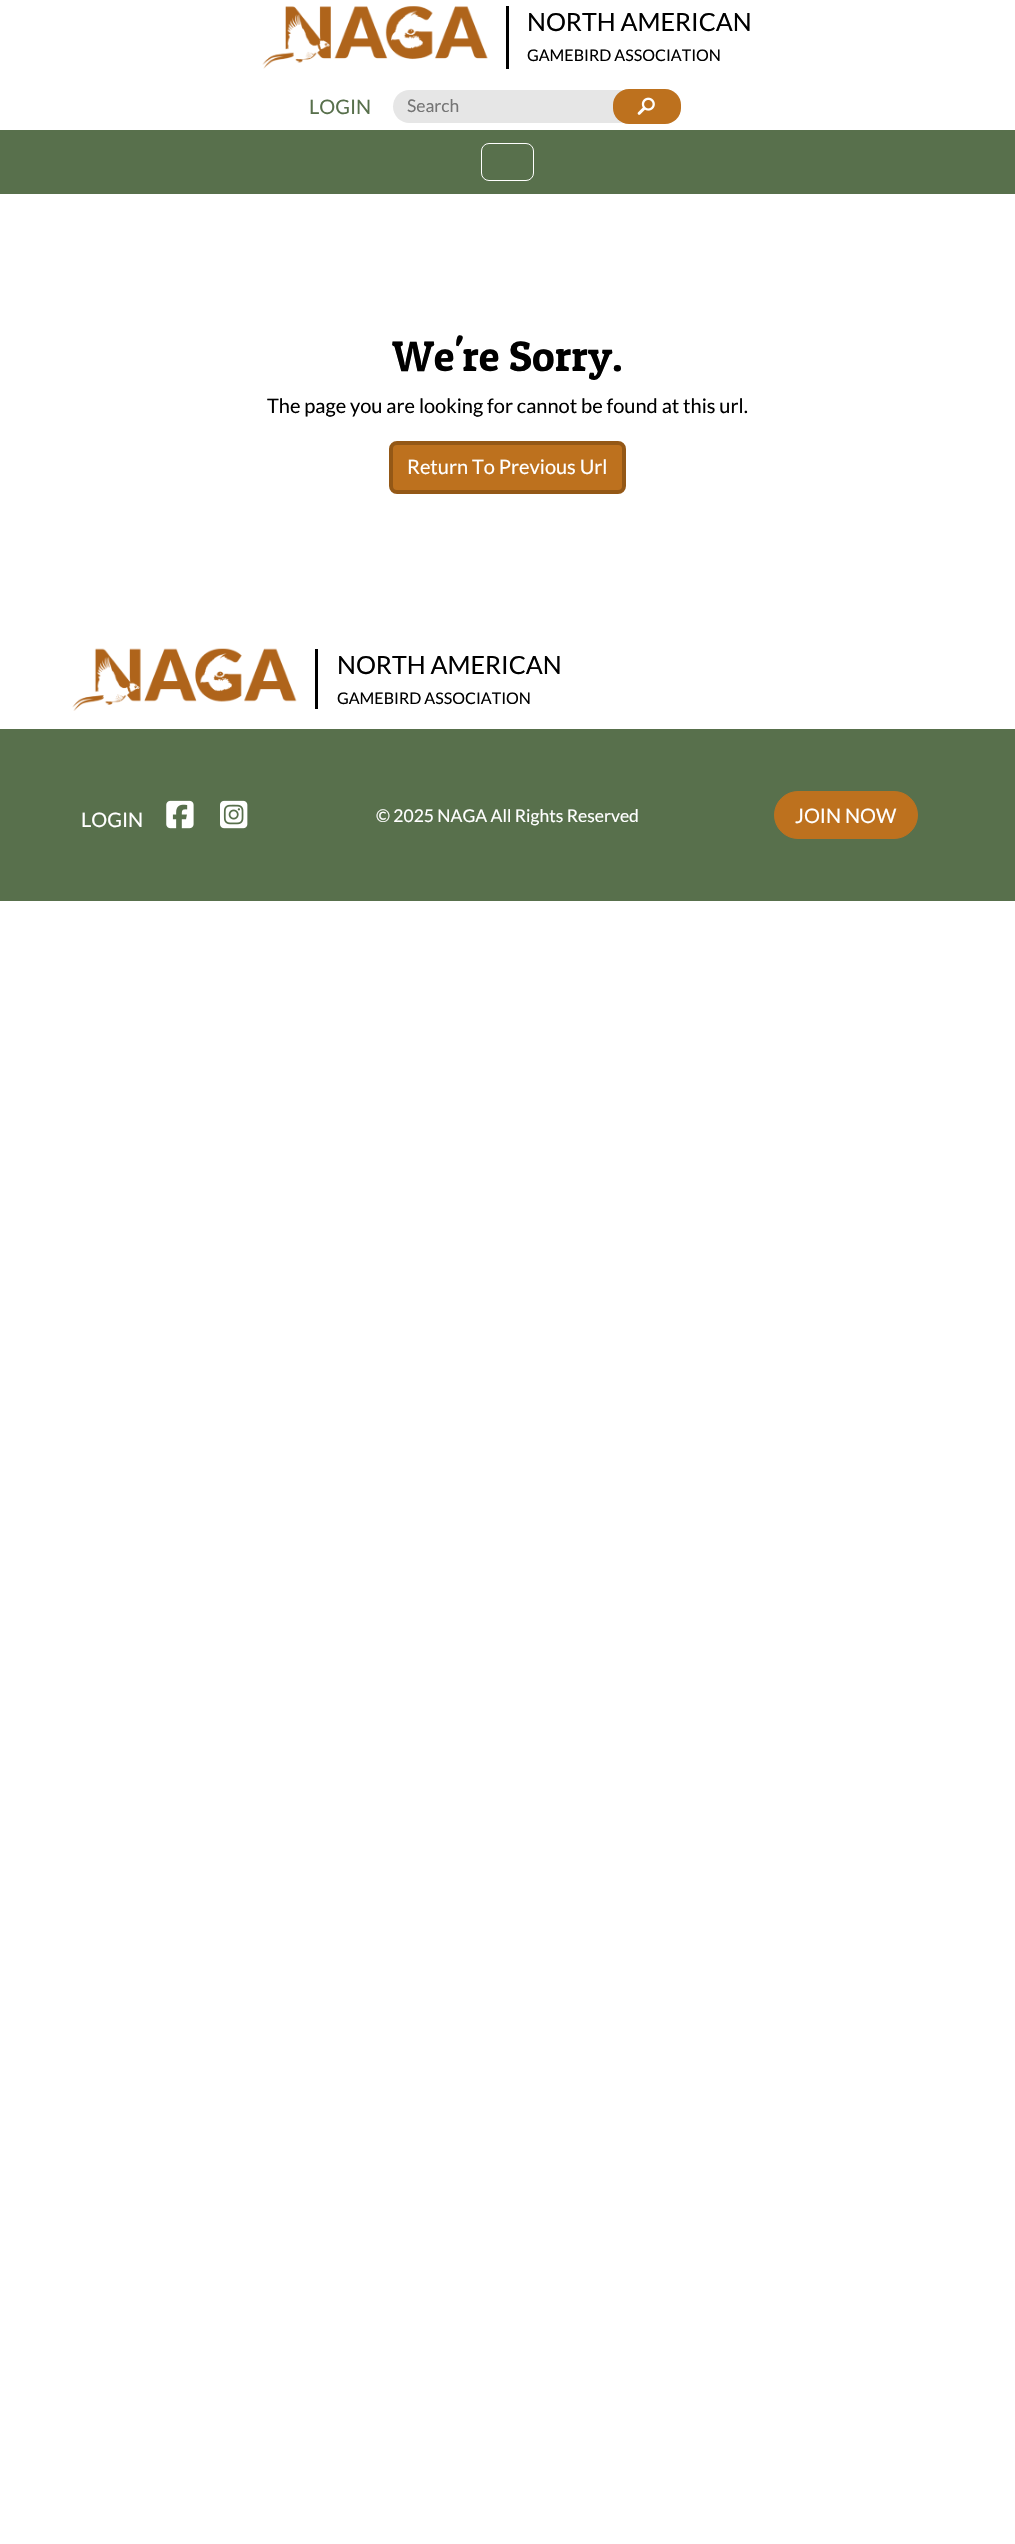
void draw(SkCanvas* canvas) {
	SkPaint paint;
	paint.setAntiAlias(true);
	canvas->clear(0xffffffff);
	canvas->drawImageRect(SkImages::DeferredFromEncodedData(SkData::MakeFromFileName("img1.png")), SkRect::MakeXYWH(262, 6, 226, 63), SkSamplingOptions());
	paint.setColor(0xff000000);
	canvas->drawRect(SkRect::MakeXYWH(506, 6, 3, 63), paint);
	SkFont f1(fontMgr->matchFamilyStyle("Lato", SkFontStyle::Normal()), 25);
	f1.setSubpixel(true);
	canvas->drawString("NORTH AMERICAN", 527, 31, f1, paint);
	SkFont f2(fontMgr->matchFamilyStyle("Lato", SkFontStyle::Normal()), 16);
	f2.setSubpixel(true);
	canvas->drawString("GAMEBIRD ASSOCIATION", 527, 61, f2, paint);
	SkFont f3(fontMgr->matchFamilyStyle("Lato", SkFontStyle::Normal()), 20);
	f3.setSubpixel(true);
	paint.setColor(0xff58704c);
	canvas->drawString("LOGIN", 309, 114, f3, paint);
	paint.setColor(0xffe6e6e6);
	canvas->drawRoundRect(SkRect::MakeXYWH(393, 90, 243, 33), 16.5, 16.5, paint);
	SkFont f4(fontMgr->matchFamilyStyle("Lato", SkFontStyle::Normal()), 17.5);
	f4.setSubpixel(true);
	paint.setColor(0xff757575);
	canvas->drawString("Search", 407, 112, f4, paint);
	paint.setColor(0xffbd711e);
	canvas->drawRoundRect(SkRect::MakeXYWH(613, 89, 68, 35), 16, 16, paint);
	canvas->drawImageRect(SkImages::DeferredFromEncodedData(SkData::MakeFromFileName("img2.png")), SkRect::MakeXYWH(637, 97, 18, 18), SkSamplingOptions());
	paint.setColor(0xff58704c);
	canvas->drawRect(SkRect::MakeXYWH(0, 130, 1015, 64), paint);
	paint.setStroke(true);
	paint.setStrokeWidth(1);
	paint.setColor(0xffffffff);
	canvas->drawRoundRect(SkRect::MakeXYWH(481.5, 143.5, 52, 37), 7.5, 7.5, paint);
	SkFont f5(fontMgr->matchFamilyStyle("Patua One", SkFontStyle::Normal()), 42.75);
	f5.setSubpixel(true);
	paint.setStroke(false);
	paint.setColor(0xff000000);
	canvas->drawString("We're Sorry.", 392, 371, f5, paint);
	canvas->drawString("The page you are looking for cannot be found at this url.", 267, 413, f3, paint);
	paint.setColor(0xffbd711e);
	canvas->drawRoundRect(SkRect::MakeXYWH(391, 443, 233, 49), 6, 6, paint);
	paint.setStroke(true);
	paint.setStrokeWidth(4);
	paint.setColor(0xff945816);
	canvas->drawRoundRect(SkRect::MakeXYWH(391, 443, 233, 49), 6, 6, paint);
	paint.setStroke(false);
	paint.setColor(0xffffffff);
	canvas->drawString("Return To Previous Url", 407, 474, f3, paint);
	canvas->drawImageRect(SkImages::DeferredFromEncodedData(SkData::MakeFromFileName("img3.png")), SkRect::MakeXYWH(72, 648, 225, 63), SkSamplingOptions());
	paint.setColor(0xff000000);
	canvas->drawRect(SkRect::MakeXYWH(315, 649, 3, 60), paint);
	canvas->drawString("NORTH AMERICAN", 337, 674, f1, paint);
	canvas->drawString("GAMEBIRD ASSOCIATION", 337, 704, f2, paint);
	paint.setColor(0xff58704c);
	canvas->drawRect(SkRect::MakeXYWH(0, 729, 1015, 172), paint);
	paint.setColor(0xffffffff);
	canvas->drawString("LOGIN", 81, 827, f3, paint);
	canvas->drawImageRect(SkImages::DeferredFromEncodedData(SkData::MakeFromFileName("img4.png")), SkRect::MakeXYWH(166, 800, 28, 29), SkSamplingOptions());
	canvas->drawImageRect(SkImages::DeferredFromEncodedData(SkData::MakeFromFileName("img5.png")), SkRect::MakeXYWH(220, 800, 28, 29), SkSamplingOptions());
	canvas->drawString("© 2025 NAGA All Rights Reserved", 376, 822, f4, paint);
	paint.setColor(0xffbd711e);
	canvas->drawRoundRect(SkRect::MakeXYWH(774.5, 791.5, 143, 47), 23.5, 23.5, paint);
	paint.setStroke(true);
	paint.setStrokeWidth(1);
	canvas->drawRoundRect(SkRect::MakeXYWH(774.5, 791.5, 143, 47), 23.5, 23.5, paint);
	paint.setStroke(false);
	paint.setColor(0xffffffff);
	canvas->drawString("JOIN NOW", 795, 823, f3, paint);
}
